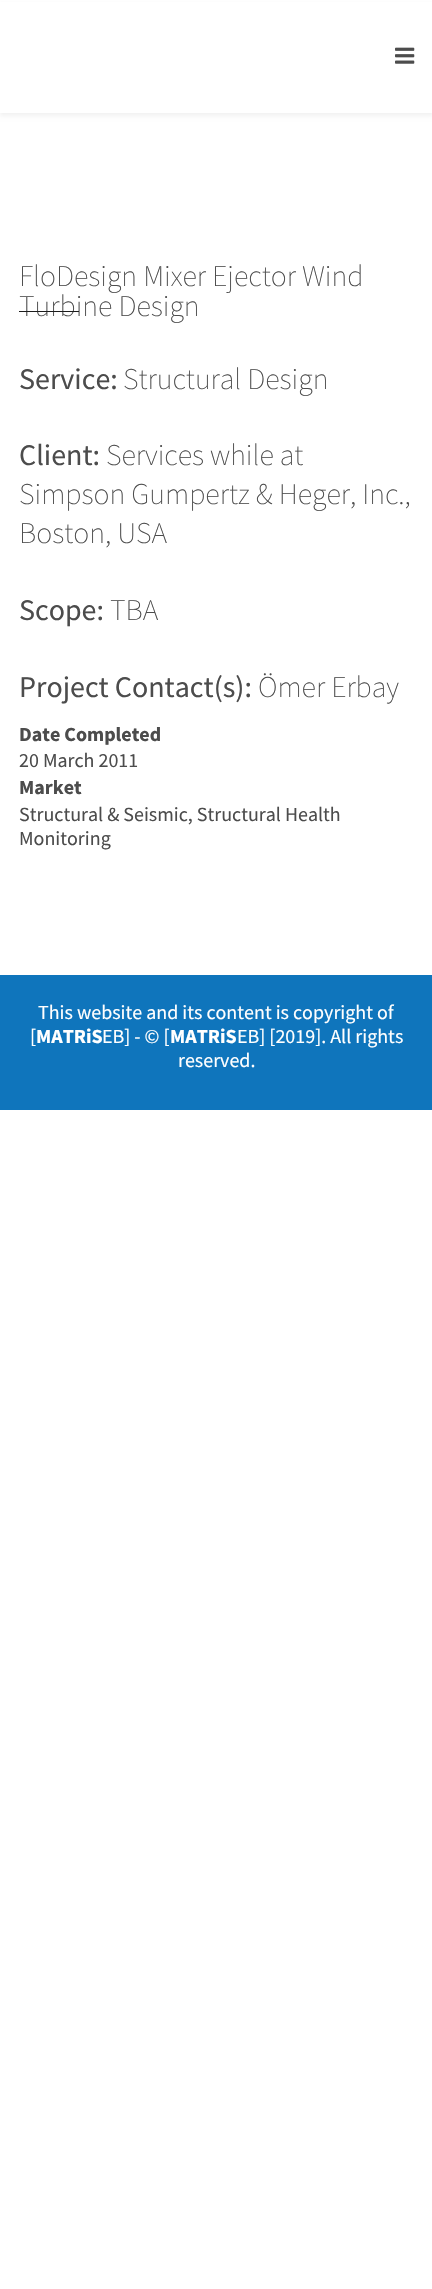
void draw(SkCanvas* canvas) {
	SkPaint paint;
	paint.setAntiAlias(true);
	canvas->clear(0xffffffff);
	paint.setColor(0x0d000000);
	paint.setMaskFilter(SkMaskFilter::MakeBlur(kNormal_SkBlurStyle, 2));
	canvas->drawRect(SkRect::MakeXYWH(0, 4, 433, 112), paint);
	paint.setMaskFilter(nullptr);
	paint.setColor(0xffffffff);
	canvas->drawRect(SkRect::MakeXYWH(0, 2, 432, 111), paint);
	canvas->drawImageRect(SkImages::DeferredFromEncodedData(SkData::MakeFromFileName("img1.png")), SkRect::MakeXYWH(395, 47, 20, 17), SkSamplingOptions());
	SkFont f1(fontMgr->matchFamilyStyle("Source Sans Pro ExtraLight", SkFontStyle(200, SkFontStyle::kNormal_Width, SkFontStyle::kUpright_Slant)), 30);
	f1.setSubpixel(true);
	paint.setColor(0xff4c4c4c);
	canvas->drawString("FloDesign Mixer Ejector Wind", 19, 286, f1, paint);
	canvas->drawString("Turbine Design", 19, 316, f1, paint);
	paint.setColor(0xff1c1c1c);
	canvas->drawRect(SkRect::MakeXYWH(19, 311, 60, 1), paint);
	SkFont f2(fontMgr->matchFamilyStyle("Source Sans Pro", SkFontStyle::Normal()), 30);
	f2.setSubpixel(true);
	paint.setColor(0xff4c4c4c);
	canvas->drawString("Service:", 19, 389, f2, paint);
	canvas->drawString("Structural Design", 123, 389, f1, paint);
	canvas->drawString("Client:", 19, 465, f2, paint);
	canvas->drawString("Services while at", 106, 465, f1, paint);
	canvas->drawString("Simpson Gumpertz & Heger, Inc.,", 19, 504, f1, paint);
	canvas->drawString("Boston, USA", 19, 543, f1, paint);
	canvas->drawString("Scope:", 19, 620, f2, paint);
	canvas->drawString("TBA", 110, 620, f1, paint);
	canvas->drawString("Project Contact(s):", 19, 697, f2, paint);
	canvas->drawString("Ömer Erbay", 258, 697, f1, paint);
	SkFont f3(fontMgr->matchFamilyStyle("Source Sans Pro", SkFontStyle::Bold()), 20);
	f3.setSubpixel(true);
	canvas->drawString("Date Completed", 19, 741, f3, paint);
	SkFont f4(fontMgr->matchFamilyStyle("Source Sans Pro", SkFontStyle::Normal()), 20);
	f4.setSubpixel(true);
	canvas->drawString("20 March 2011", 19, 767, f4, paint);
	canvas->drawString("Market", 19, 794, f3, paint);
	canvas->drawString("Structural & Seismic, Structural Health", 19, 821, f4, paint);
	canvas->drawString("Monitoring", 19, 845, f4, paint);
	paint.setColor(0xff0f75bc);
	canvas->drawRect(SkRect::MakeXYWH(0, 975, 432, 135), paint);
	paint.setColor(0xffffffff);
	canvas->drawString("This website and its content is copyright of", 38, 1019, f4, paint);
	canvas->drawString("[", 30, 1043, f4, paint);
	canvas->drawString("MATRiS", 36, 1043, f3, paint);
	canvas->drawString("EB] - © [", 102, 1043, f4, paint);
	canvas->drawString("MATRiS", 170, 1043, f3, paint);
	canvas->drawString("EB] [2019]. All rights", 237, 1043, f4, paint);
	canvas->drawString("reserved.", 178, 1067, f4, paint);
}
